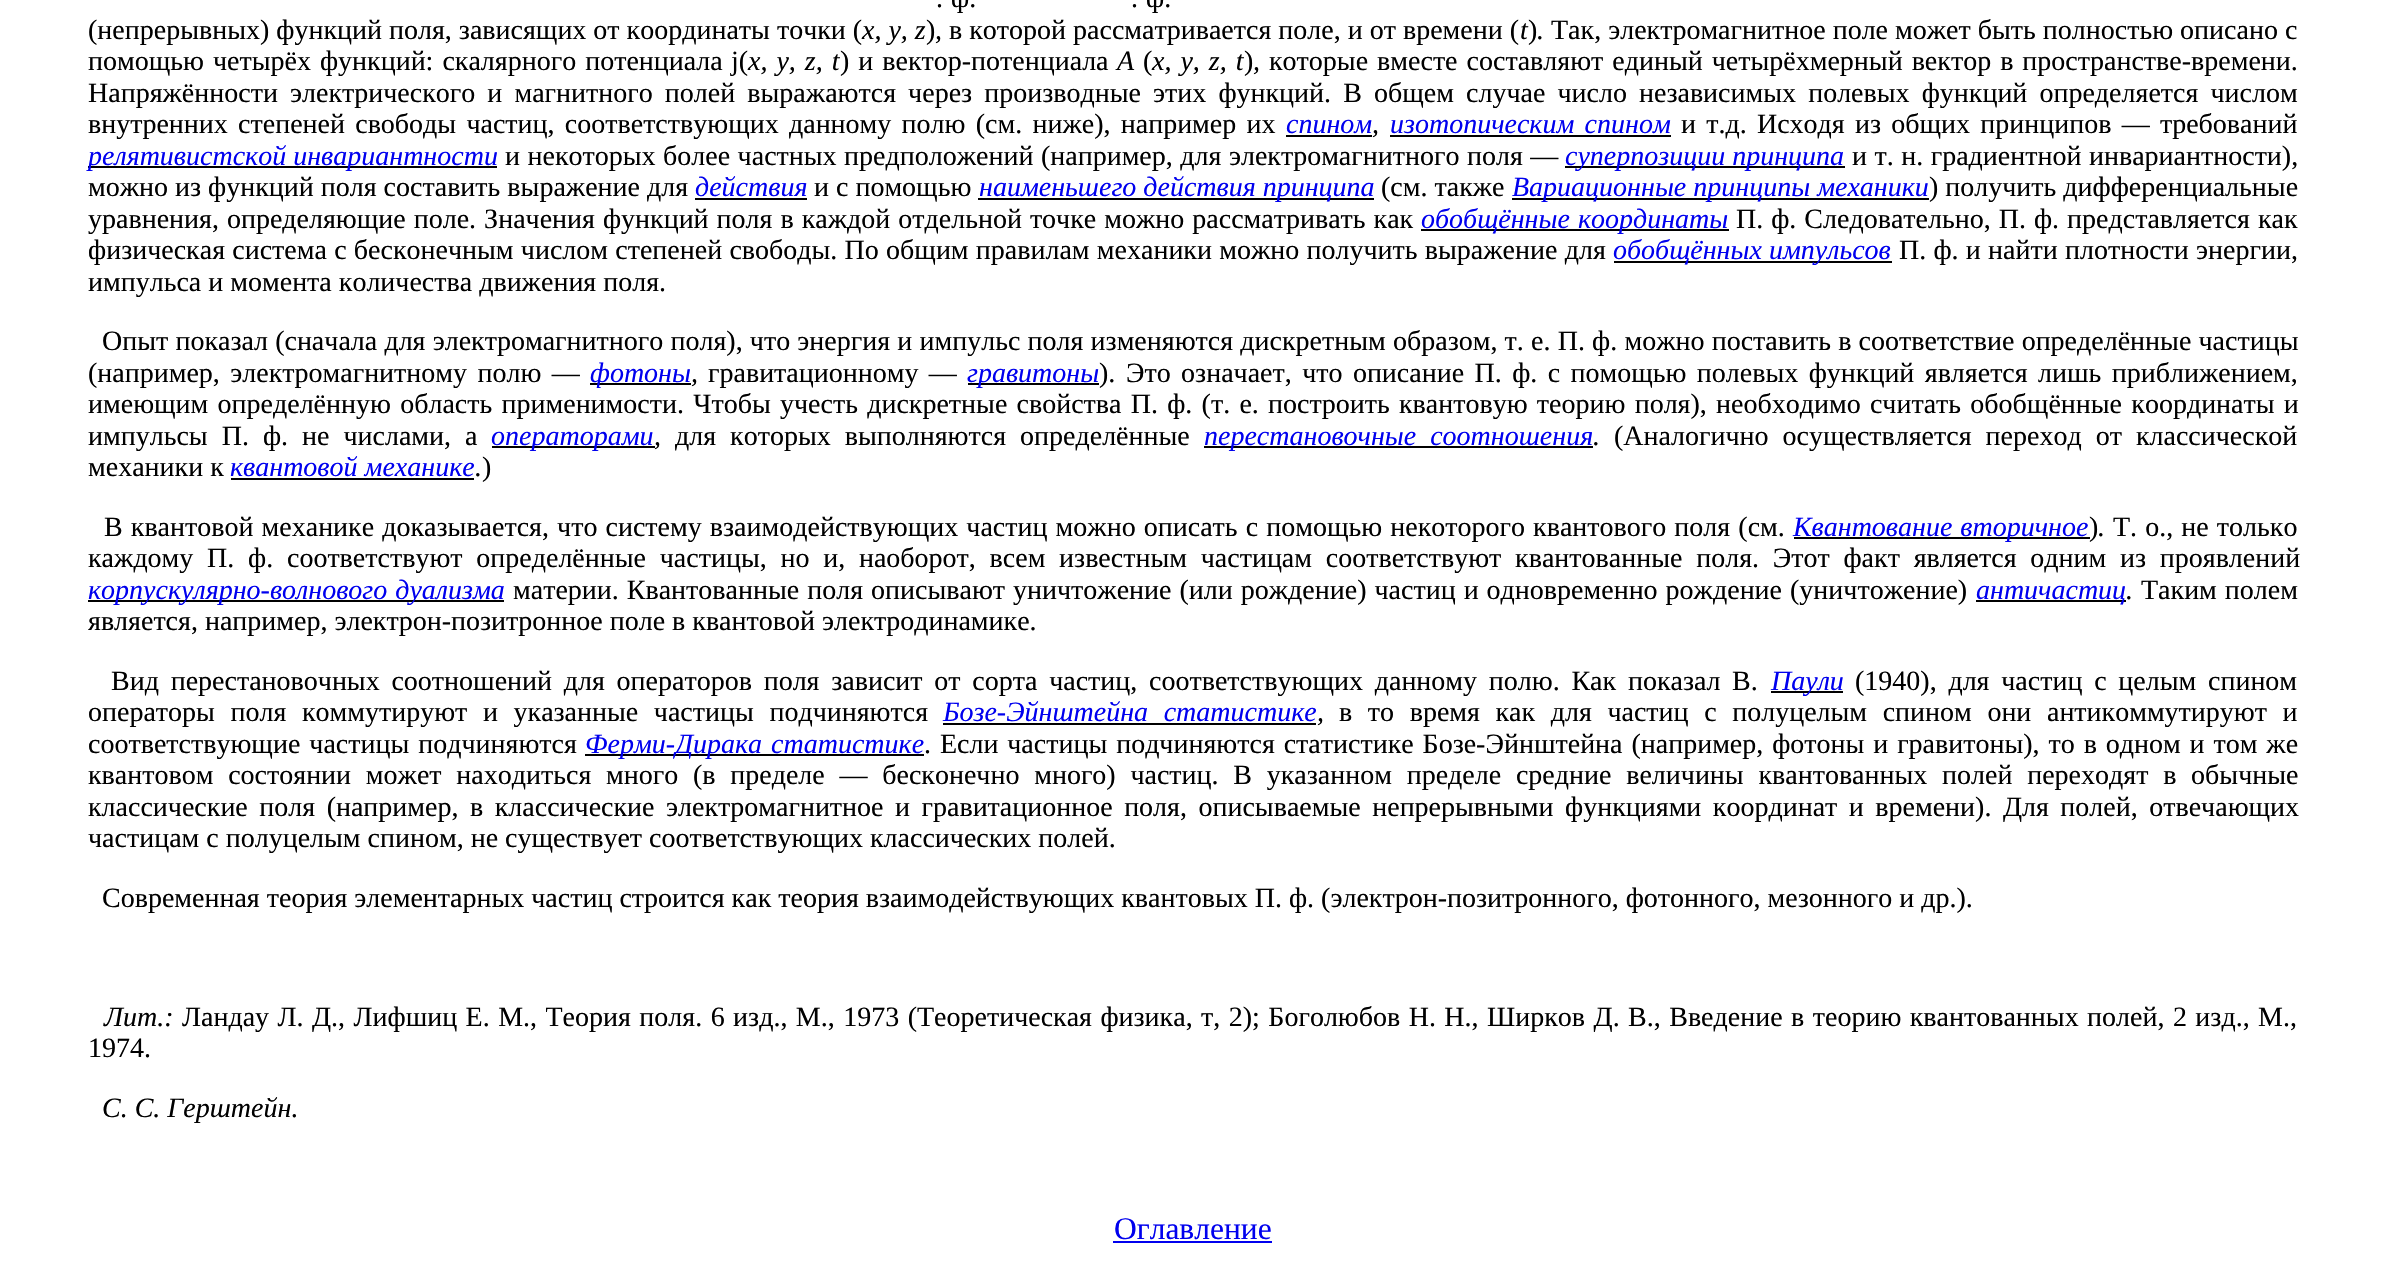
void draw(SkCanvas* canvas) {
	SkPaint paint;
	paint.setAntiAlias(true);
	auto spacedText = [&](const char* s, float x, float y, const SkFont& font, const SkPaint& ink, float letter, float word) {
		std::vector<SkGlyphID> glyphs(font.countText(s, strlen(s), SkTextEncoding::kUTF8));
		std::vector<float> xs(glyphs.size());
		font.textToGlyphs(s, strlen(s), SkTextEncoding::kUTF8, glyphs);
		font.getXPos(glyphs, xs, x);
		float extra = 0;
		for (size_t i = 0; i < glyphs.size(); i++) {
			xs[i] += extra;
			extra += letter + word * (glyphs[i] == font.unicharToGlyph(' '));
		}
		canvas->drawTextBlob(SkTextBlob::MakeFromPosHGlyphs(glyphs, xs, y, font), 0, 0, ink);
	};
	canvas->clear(0xffffffff);
	SkFont f1(fontMgr->matchFamilyStyle("Liberation Serif", SkFontStyle::Normal()), 28);
	f1.setSubpixel(true);
	paint.setColor(0xff000000);
	spacedText(". ф.", 936, 7, f1, paint, 0, 1);
	spacedText(". ф.", 1131, 7, f1, paint, 0, 1);
	canvas->drawString("(непрерывных) функций поля, зависящих от координаты точки (", 88, 39, f1, paint);
	SkFont f2(fontMgr->matchFamilyStyle("Liberation Serif", SkFontStyle::Italic()), 28);
	f2.setSubpixel(true);
	canvas->drawString("х, у, z", 862, 39, f2, paint);
	canvas->drawString(")", 926, 39, f1, paint);
	canvas->drawString(",", 935, 39, f2, paint);
	canvas->drawString("в которой рассматривается поле, и от времени (", 949, 39, f1, paint);
	canvas->drawString("t", 1520, 39, f2, paint);
	canvas->drawString(")", 1528, 39, f1, paint);
	canvas->drawString(".", 1537, 39, f2, paint);
	canvas->drawString("Так, электромагнитное поле может быть полностью описано с", 1551, 39, f1, paint);
	spacedText("помощью четырёх функций: скалярного потенциала", 88, 70, f1, paint, 0, 2);
	canvas->drawString("j(", 731, 70, f1, paint);
	spacedText("х, у, z, t", 748, 70, f2, paint, 0, 2);
	spacedText(") и вектор-потенциала", 840, 70, f1, paint, 0, 2);
	canvas->drawString("А", 1117, 70, f2, paint);
	canvas->drawString("(", 1143, 70, f1, paint);
	spacedText("х, у, z, t", 1152, 70, f2, paint, 0, 2);
	canvas->drawString(")", 1244, 70, f1, paint);
	canvas->drawString(",", 1253, 70, f2, paint);
	spacedText("которые вместе составляют единый четырёхмерный вектор в пространстве-времени.", 1269, 70, f1, paint, 0, 2);
	spacedText("Напряжённости электрического и магнитного полей выражаются через производные этих функций. В общем случае число независимых полевых функций определяется числом", 88, 102, f1, paint, 0, 5.1);
	spacedText("внутренних степеней свободы частиц, соответствующих данному полю (см. ниже), например их", 88, 133, f1, paint, 0, 3.25);
	paint.setColor(0xff0000ee);
	canvas->drawString("спином", 1286, 133, f2, paint);
	paint.setColor(0xff000000);
	canvas->drawString(",", 1372, 133, f2, paint);
	canvas->drawRect(SkRect::MakeXYWH(1286, 135, 86, 2), paint);
	canvas->drawRect(SkRect::MakeXYWH(1390, 135, 281, 2), paint);
	paint.setColor(0xff0000ee);
	spacedText("изотопическим спином", 1390, 133, f2, paint, 0, 3.25);
	paint.setColor(0xff000000);
	spacedText("и т.д. Исходя из общих принципов — требований", 1681, 133, f1, paint, 0, 3.25);
	canvas->drawRect(SkRect::MakeXYWH(88, 166, 409, 2), paint);
	paint.setColor(0xff0000ee);
	canvas->drawString("релятивистской инвариантности", 88, 165, f2, paint);
	paint.setColor(0xff000000);
	spacedText("и некоторых более частных предположений (например, для электромагнитного поля —", 505, 165, f1, paint, 0, 0.5);
	canvas->drawRect(SkRect::MakeXYWH(1565, 166, 280, 2), paint);
	paint.setColor(0xff0000ee);
	canvas->drawString("суперпозиции принципа", 1565, 165, f2, paint);
	paint.setColor(0xff000000);
	spacedText("и т. н. градиентной инвариантности),", 1852, 165, f1, paint, 0, 0.5);
	canvas->drawString("можно из функций поля составить выражение для", 88, 196, f1, paint);
	paint.setColor(0xff0000ee);
	canvas->drawString("действия", 695, 196, f2, paint);
	paint.setColor(0xff000000);
	canvas->drawRect(SkRect::MakeXYWH(695, 198, 112, 2), paint);
	canvas->drawString("и с помощью", 814, 196, f1, paint);
	canvas->drawRect(SkRect::MakeXYWH(978, 198, 396, 2), paint);
	paint.setColor(0xff0000ee);
	canvas->drawString("наименьшего действия принципа", 979, 196, f2, paint);
	paint.setColor(0xff000000);
	canvas->drawString("(см. также", 1381, 196, f1, paint);
	canvas->drawRect(SkRect::MakeXYWH(1512, 198, 417, 2), paint);
	paint.setColor(0xff0000ee);
	canvas->drawString("Вариационные принципы механики", 1512, 196, f2, paint);
	paint.setColor(0xff000000);
	canvas->drawString(") получить дифференциальные", 1929, 196, f1, paint);
	spacedText("уравнения, определяющие поле. Значения функций поля в каждой отдельной точке можно рассматривать как", 88, 228, f1, paint, 0, 1);
	canvas->drawRect(SkRect::MakeXYWH(1421, 229, 308, 2), paint);
	paint.setColor(0xff0000ee);
	spacedText("обобщённые координаты", 1421, 228, f2, paint, 0, 1);
	paint.setColor(0xff000000);
	spacedText("П. ф. Следовательно, П. ф. представляется как", 1736, 228, f1, paint, 0, 1);
	spacedText("физическая система с бесконечным числом степеней свободы. По общим правилам механики можно получить выражение для", 88, 259, f1, paint, 0, 0.25);
	canvas->drawRect(SkRect::MakeXYWH(1614, 261, 278, 2), paint);
	paint.setColor(0xff0000ee);
	canvas->drawString("обобщённых импульсов", 1613, 259, f2, paint);
	paint.setColor(0xff000000);
	spacedText("П. ф. и найти плотности энергии,", 1899, 259, f1, paint, 0, 0.25);
	canvas->drawString("импульса и момента количества движения поля.", 88, 291, f1, paint);
	spacedText("Опыт показал (сначала для электромагнитного поля), что энергия и импульс поля изменяются дискретным образом, т. е. П. ф. можно поставить в соответствие определённые частицы", 102, 350, f1, paint, 0, 0.2);
	spacedText("(например, электромагнитному полю —", 88, 382, f1, paint, 0, 3.4);
	canvas->drawRect(SkRect::MakeXYWH(590, 383, 101, 2), paint);
	paint.setColor(0xff0000ee);
	canvas->drawString("фотоны", 590, 382, f2, paint);
	paint.setColor(0xff000000);
	canvas->drawString(",", 691, 382, f2, paint);
	spacedText("гравитационному —", 708, 382, f1, paint, 0, 3.4);
	canvas->drawRect(SkRect::MakeXYWH(968, 383, 131, 2), paint);
	paint.setColor(0xff0000ee);
	canvas->drawString("гравитоны", 967, 382, f2, paint);
	paint.setColor(0xff000000);
	canvas->drawString(")", 1099, 382, f1, paint);
	canvas->drawString(".", 1109, 382, f2, paint);
	spacedText("Это означает, что описание П. ф. с помощью полевых функций является лишь приближением,", 1126, 382, f1, paint, 0, 3.4);
	spacedText("имеющим определённую область применимости. Чтобы учесть дискретные свойства П. ф. (т. е. построить квантовую теорию поля), необходимо считать обобщённые координаты и", 88, 413, f1, paint, 0, 2.25);
	spacedText("импульсы П. ф. не числами, а", 88, 445, f1, paint, 0, 7);
	canvas->drawRect(SkRect::MakeXYWH(492, 446, 163, 2), paint);
	paint.setColor(0xff0000ee);
	canvas->drawString("операторами", 491, 445, f2, paint);
	paint.setColor(0xff000000);
	canvas->drawString(",", 654, 445, f2, paint);
	spacedText("для которых выполняются определённые", 675, 445, f1, paint, 0, 7);
	canvas->drawRect(SkRect::MakeXYWH(1204, 446, 389, 2), paint);
	paint.setColor(0xff0000ee);
	spacedText("перестановочные соотношения", 1204, 445, f2, paint, 0, 7);
	paint.setColor(0xff000000);
	canvas->drawString(".", 1593, 445, f2, paint);
	spacedText("(Аналогично осуществляется переход от классической", 1614, 445, f1, paint, 0, 7);
	canvas->drawString("механики к", 88, 476, f1, paint);
	paint.setColor(0xff0000ee);
	canvas->drawString("квантовой механике", 230, 476, f2, paint);
	paint.setColor(0xff000000);
	canvas->drawString(".", 475, 476, f2, paint);
	canvas->drawRect(SkRect::MakeXYWH(231, 478, 243, 2), paint);
	canvas->drawString(")", 482, 476, f1, paint);
	spacedText("В квантовой механике доказывается, что систему взаимодействующих частиц можно описать с помощью некоторого квантового поля (см.", 104, 536, f1, paint, 0, 1.1);
	canvas->drawRect(SkRect::MakeXYWH(1794, 537, 296, 2), paint);
	paint.setColor(0xff0000ee);
	spacedText("Квантование вторичное", 1793, 536, f2, paint, 0, 1);
	paint.setColor(0xff000000);
	canvas->drawString(")", 2089, 536, f1, paint);
	canvas->drawString(".", 2098, 536, f2, paint);
	spacedText("Т. о., не только", 2113, 536, f1, paint, 0, 1.1);
	spacedText("каждому П. ф. соответствуют определённые частицы, но и, наоборот, всем известным частицам соответствуют квантованные поля. Этот факт является одним из проявлений", 88, 567, f1, paint, 0, 6.75);
	canvas->drawRect(SkRect::MakeXYWH(88, 600, 416, 2), paint);
	paint.setColor(0xff0000ee);
	spacedText("корпускулярно-волнового дуализма", 88, 599, f2, paint, 0, 1);
	paint.setColor(0xff000000);
	spacedText("материи. Квантованные поля описывают уничтожение (или рождение) частиц и одновременно рождение (уничтожение)", 513, 599, f1, paint, 0, 1);
	canvas->drawRect(SkRect::MakeXYWH(1976, 600, 150, 2), paint);
	paint.setColor(0xff0000ee);
	canvas->drawString("античастиц", 1976, 599, f2, paint);
	paint.setColor(0xff000000);
	canvas->drawString(".", 2126, 599, f2, paint);
	spacedText("Таким полем", 2141, 599, f1, paint, 0, 1);
	canvas->drawString("является, например, электрон-позитронное поле в квантовой электродинамике.", 88, 630, f1, paint);
	spacedText("Вид перестановочных соотношений для операторов поля зависит от сорта частиц, соответствующих данному полю. Как показал В.", 111, 690, f1, paint, 0, 4.75);
	canvas->drawRect(SkRect::MakeXYWH(1771, 691, 72, 2), paint);
	paint.setColor(0xff0000ee);
	canvas->drawString("Паули", 1771, 690, f2, paint);
	paint.setColor(0xff000000);
	spacedText("(1940), для частиц с целым спином", 1855, 690, f1, paint, 0, 4.75);
	spacedText("операторы поля коммутируют и указанные частицы подчиняются", 88, 721, f1, paint, 0, 8.6);
	paint.setColor(0xff0000ee);
	spacedText("Бозе-Эйнштейна статистике", 943, 721, f2, paint, 0, 8.6);
	paint.setColor(0xff000000);
	canvas->drawString(",", 1317, 721, f2, paint);
	canvas->drawRect(SkRect::MakeXYWH(943, 723, 373, 2), paint);
	spacedText("в то время как для частиц с полуцелым спином они антикоммутируют и", 1339, 721, f1, paint, 0, 8.6);
	spacedText("соответствующие частицы подчиняются", 88, 753, f1, paint, 0, 2);
	canvas->drawRect(SkRect::MakeXYWH(585, 754, 339, 2), paint);
	paint.setColor(0xff0000ee);
	spacedText("Ферми-Дирака статистике", 585, 753, f2, paint, 0, 2);
	paint.setColor(0xff000000);
	spacedText(". Если частицы подчиняются статистике Бозе-Эйнштейна (например, фотоны и гравитоны), то в одном и том же", 924, 753, f1, paint, 0, 1.9);
	spacedText("квантовом состоянии может находиться много (в пределе — бесконечно много) частиц. В указанном пределе средние величины квантованных полей переходят в обычные", 88, 784, f1, paint, 0, 7.75);
	spacedText("классические поля (например, в классические электромагнитное и гравитационное поля, описываемые непрерывными функциями координат и времени). Для полей, отвечающих", 88, 816, f1, paint, 0, 4.5);
	canvas->drawString("частицам с полуцелым спином, не существует соответствующих классических полей.", 88, 847, f1, paint);
	canvas->drawString("Современная теория элементарных частиц строится как теория взаимодействующих квантовых П. ф. (электрон-позитронного, фотонного, мезонного и др.).", 102, 907, f1, paint);
	canvas->drawString("Лит.:", 104, 1026, f2, paint);
	spacedText("Ландау Л. Д., Лифшиц Е. М., Теория поля. 6 изд., М., 1973 (Теоретическая физика, т, 2); Боголюбов Н. Н., Ширков Д. В., Введение в теорию квантованных полей, 2 изд., М.,", 182, 1026, f1, paint, 0, 1.45);
	canvas->drawString("1974.", 88, 1057, f1, paint);
	canvas->drawString("С. С. Герштейн.", 102, 1117, f2, paint);
	SkFont f3(fontMgr->matchFamilyStyle("Liberation Serif", SkFontStyle::Normal()), 31.5);
	f3.setSubpixel(true);
	paint.setColor(0xff0000ee);
	canvas->drawString("Оглавление", 1114, 1239, f3, paint);
	canvas->drawRect(SkRect::MakeXYWH(1113, 1241, 159, 2), paint);
}
